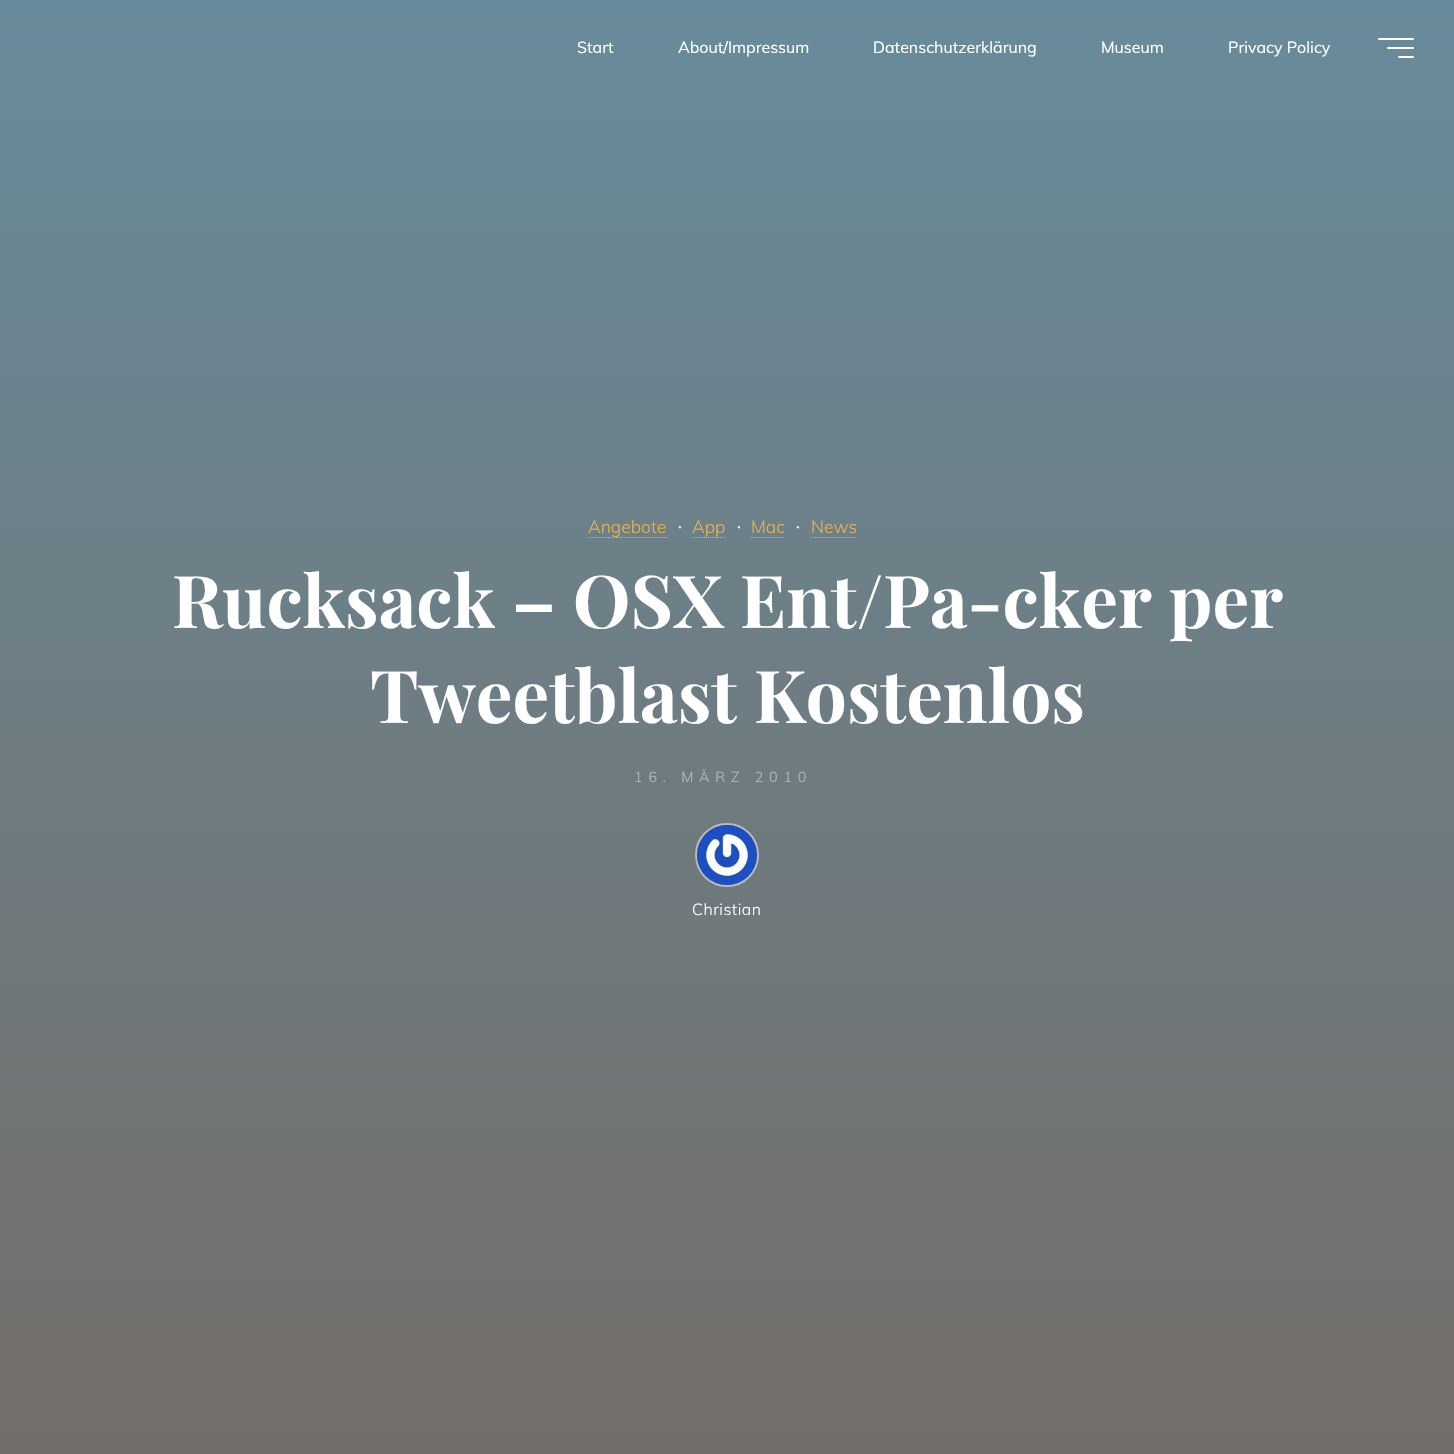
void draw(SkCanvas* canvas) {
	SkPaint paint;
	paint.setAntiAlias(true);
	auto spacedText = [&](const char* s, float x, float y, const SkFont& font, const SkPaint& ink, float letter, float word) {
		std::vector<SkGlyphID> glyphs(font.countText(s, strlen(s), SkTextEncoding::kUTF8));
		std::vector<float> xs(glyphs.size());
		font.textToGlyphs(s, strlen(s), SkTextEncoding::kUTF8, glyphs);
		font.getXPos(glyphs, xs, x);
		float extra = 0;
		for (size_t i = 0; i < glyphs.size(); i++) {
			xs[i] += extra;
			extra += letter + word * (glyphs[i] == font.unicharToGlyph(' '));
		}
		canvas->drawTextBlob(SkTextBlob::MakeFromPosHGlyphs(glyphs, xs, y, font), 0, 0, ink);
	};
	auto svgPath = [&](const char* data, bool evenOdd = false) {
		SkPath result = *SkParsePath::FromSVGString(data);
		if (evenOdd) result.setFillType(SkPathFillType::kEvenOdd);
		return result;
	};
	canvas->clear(0xffffffff);
	{
		const SkColor colors[] = {0xff688b9b, 0xff746e6a};
		const float stops[] = {0, 1};
		const SkPoint ends[] = {{727, 0}, {727, 1454}};
		paint.setShader(SkGradientShader::MakeLinear(ends, colors, stops, 2, SkTileMode::kClamp));
		paint.setAlpha(255);
	}
	canvas->drawRect(SkRect::MakeXYWH(0, 0, 1454, 1454), paint);
	SkFont f1(fontMgr->matchFamilyStyle("Muli", SkFontStyle::Normal()), 16);
	f1.setSubpixel(true);
	paint.setShader(nullptr);
	paint.setColor(0xffffffff);
	canvas->drawString("Start", 577, 53, f1, paint);
	canvas->drawString("About/Impressum", 678, 53, f1, paint);
	canvas->drawString("Datenschutzerklärung", 873, 53, f1, paint);
	canvas->drawString("Museum", 1101, 53, f1, paint);
	canvas->drawString("Privacy Policy", 1228, 53, f1, paint);
	canvas->drawRoundRect(SkRect::MakeXYWH(1378, 38, 36, 2), 1, 1, paint);
	canvas->drawRoundRect(SkRect::MakeXYWH(1387, 47, 27, 2), 1, 1, paint);
	canvas->drawRoundRect(SkRect::MakeXYWH(1398, 56, 16, 2), 1, 1, paint);
	SkFont f2(fontMgr->matchFamilyStyle("Muli", SkFontStyle(300, SkFontStyle::kNormal_Width, SkFontStyle::kUpright_Slant)), 17.5);
	f2.setSubpixel(true);
	paint.setColor(0xffe9b44c);
	canvas->drawString("Angebote", 588, 533, f2, paint);
	paint.setStroke(true);
	paint.setStrokeWidth(1);
	paint.setPathEffect(SkDashPathEffect::Make({{1, 1}}, 0));
	canvas->drawPath(svgPath("M588 537.5H667"), paint);
	paint.setPathEffect(nullptr);
	SkFont f3(fontMgr->matchFamilyStyle("Liberation Serif", SkFontStyle::Normal()), 17.5);
	f3.setSubpixel(true);
	paint.setStroke(false);
	paint.setColor(0xffffffff);
	canvas->drawString("·", 677, 533, f3, paint);
	paint.setColor(0xffe9b44c);
	canvas->drawString("App", 692, 533, f2, paint);
	paint.setStroke(true);
	paint.setPathEffect(SkDashPathEffect::Make({{1, 1}}, 0));
	canvas->drawPath(svgPath("M692 537.5H726"), paint);
	paint.setPathEffect(nullptr);
	paint.setStroke(false);
	paint.setColor(0xffffffff);
	canvas->drawString("·", 736, 533, f3, paint);
	paint.setColor(0xffe9b44c);
	canvas->drawString("Mac", 751, 533, f2, paint);
	paint.setStroke(true);
	paint.setPathEffect(SkDashPathEffect::Make({{1, 1}}, 0));
	canvas->drawPath(svgPath("M751 537.5H785"), paint);
	paint.setPathEffect(nullptr);
	paint.setStroke(false);
	paint.setColor(0xffffffff);
	canvas->drawString("·", 795, 533, f3, paint);
	paint.setColor(0xffe9b44c);
	canvas->drawString("News", 811, 533, f2, paint);
	paint.setStroke(true);
	paint.setPathEffect(SkDashPathEffect::Make({{1, 1}}, 0));
	canvas->drawPath(svgPath("M811 537.5H857"), paint);
	paint.setPathEffect(nullptr);
	SkFont f4(fontMgr->matchFamilyStyle("Playfair Display", SkFontStyle::Bold()), 72.75);
	f4.setSubpixel(true);
	paint.setStroke(false);
	paint.setColor(0xffffffff);
	canvas->drawString("Rucksack – OSX Ent/Pa-cker per", 172, 628, f4, paint);
	canvas->drawString("Tweetblast Kostenlos", 370, 723, f4, paint);
	SkFont f5(fontMgr->matchFamilyStyle("Muli", SkFontStyle(300, SkFontStyle::kNormal_Width, SkFontStyle::kUpright_Slant)), 14.4);
	f5.setSubpixel(true);
	paint.setColor(0xffb7bdc0);
	spacedText("16. MÄRZ 2010", 634, 782, f5, paint, 5.75, 0);
	paint.setStroke(true);
	paint.setStrokeWidth(2);
	paint.setColor(0xffbbbbbb);
	canvas->drawCircle(727, 855, 31, paint);
	canvas->drawImageRect(SkImages::DeferredFromEncodedData(SkData::MakeFromFileName("img1.png")), SkRect::MakeXYWH(697, 825, 60, 60), SkSamplingOptions());
	SkFont f6(fontMgr->matchFamilyStyle("Muli", SkFontStyle(300, SkFontStyle::kNormal_Width, SkFontStyle::kUpright_Slant)), 16);
	f6.setSubpixel(true);
	paint.setStroke(false);
	paint.setColor(0xffffffff);
	spacedText("Christian", 692, 915, f6, paint, 0.5, 0);
}
